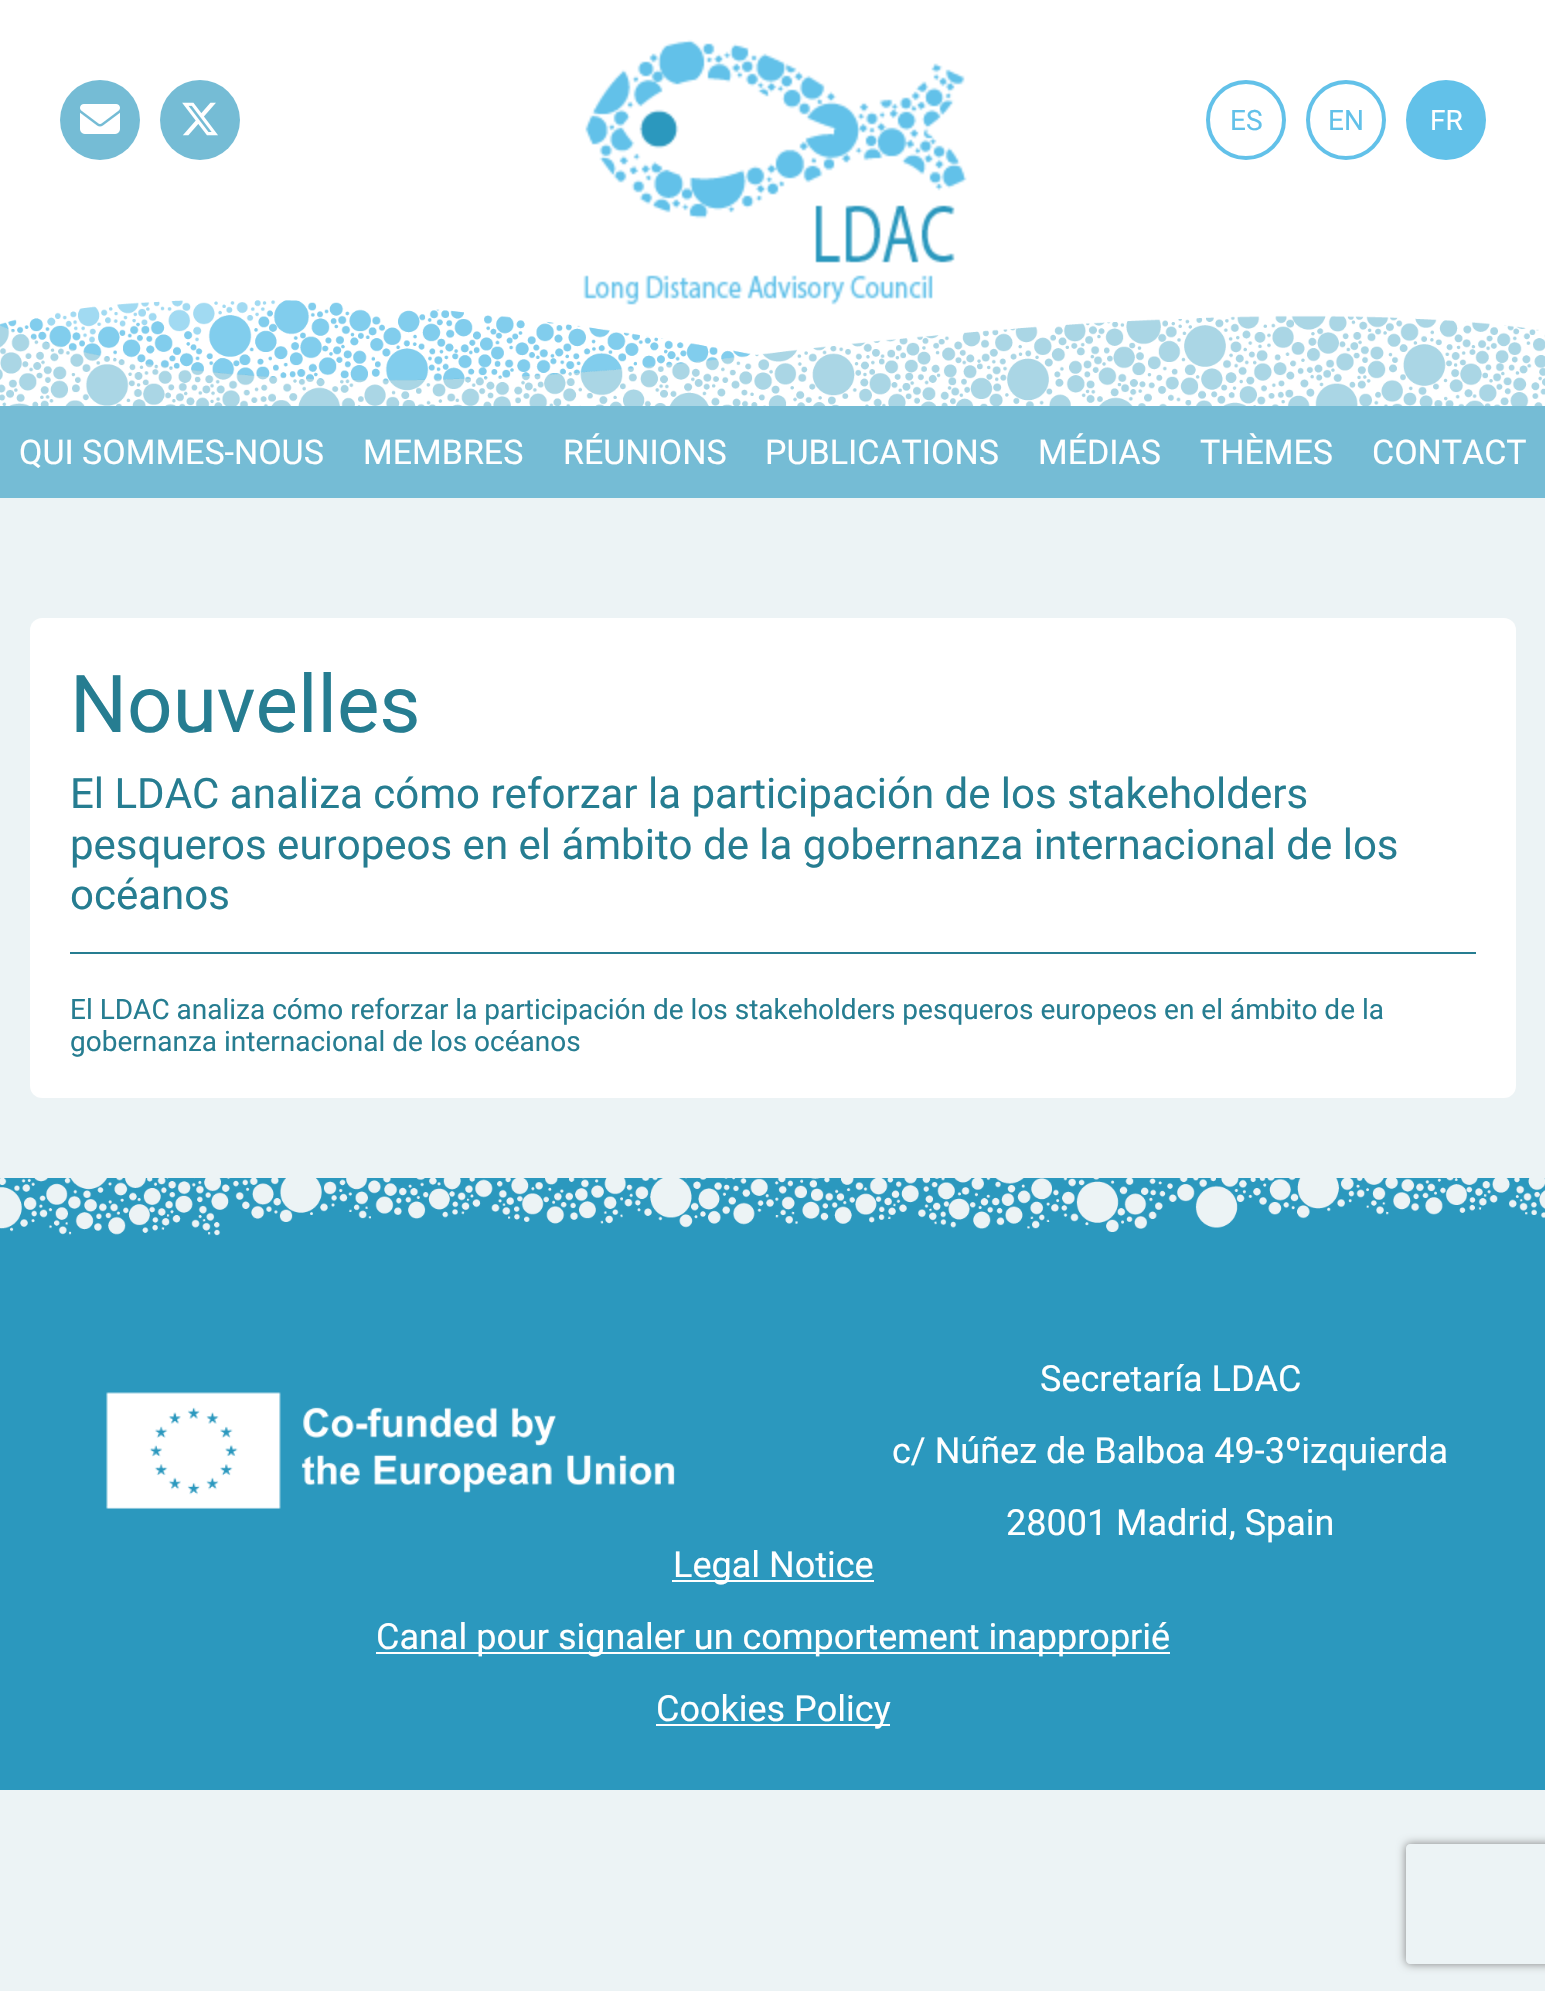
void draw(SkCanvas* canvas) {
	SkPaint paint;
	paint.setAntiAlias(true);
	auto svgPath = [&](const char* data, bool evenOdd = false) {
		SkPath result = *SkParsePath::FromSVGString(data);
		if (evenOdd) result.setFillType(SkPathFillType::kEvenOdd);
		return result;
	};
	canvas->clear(0xffecf3f5);
	paint.setColor(0xffffffff);
	canvas->drawRect(SkRect::MakeXYWH(0, 0, 1545, 355), paint);
	canvas->drawImageRect(SkImages::DeferredFromEncodedData(SkData::MakeFromFileName("img4.png")), SkRect::MakeXYWH(0, 300, 1545, 106), SkSamplingOptions());
	canvas->drawImageRect(SkImages::DeferredFromEncodedData(SkData::MakeFromFileName("img1.png")), SkRect::MakeXYWH(583, 39, 384, 266), SkSamplingOptions());
	paint.setColor(0xff75bcd5);
	canvas->drawCircle(100, 120, 40, paint);
	canvas->drawImageRect(SkImages::DeferredFromEncodedData(SkData::MakeFromFileName("img2.png")), SkRect::MakeXYWH(80, 104, 40, 30), SkSamplingOptions());
	canvas->drawCircle(200, 120, 40, paint);
	canvas->drawImageRect(SkImages::DeferredFromEncodedData(SkData::MakeFromFileName("img3.png")), SkRect::MakeXYWH(182, 102, 36, 34), SkSamplingOptions());
	paint.setStroke(true);
	paint.setStrokeWidth(4);
	paint.setColor(0xff62c1e9);
	canvas->drawCircle(1246, 120, 38, paint);
	SkFont f1(fontMgr->matchFamilyStyle("Roboto", SkFontStyle::Normal()), 28);
	f1.setSubpixel(true);
	paint.setStroke(false);
	canvas->drawString("ES", 1230, 130, f1, paint);
	paint.setStroke(true);
	canvas->drawCircle(1346, 120, 38, paint);
	paint.setStroke(false);
	canvas->drawString("EN", 1328, 130, f1, paint);
	canvas->drawCircle(1446, 120, 38, paint);
	paint.setStroke(true);
	canvas->drawCircle(1446, 120, 38, paint);
	paint.setStroke(false);
	paint.setColor(0xffffffff);
	canvas->drawString("FR", 1430, 130, f1, paint);
	paint.setColor(0xff75bcd5);
	canvas->drawRect(SkRect::MakeXYWH(0, 406, 1545, 92), paint);
	SkFont f2(fontMgr->matchFamilyStyle("Roboto", SkFontStyle::Normal()), 34);
	f2.setSubpixel(true);
	paint.setColor(0xffffffff);
	canvas->drawString("QUI SOMMES-NOUS", 19, 464, f2, paint);
	canvas->drawString("MEMBRES", 363, 464, f2, paint);
	canvas->drawString("RÉUNIONS", 563, 464, f2, paint);
	canvas->drawString("PUBLICATIONS", 765, 464, f2, paint);
	canvas->drawString("MÉDIAS", 1038, 464, f2, paint);
	canvas->drawString("THÈMES", 1200, 464, f2, paint);
	canvas->drawString("CONTACT", 1372, 464, f2, paint);
	canvas->drawRoundRect(SkRect::MakeXYWH(30, 618, 1486, 480), 12, 12, paint);
	SkFont f3(fontMgr->matchFamilyStyle("Roboto", SkFontStyle::Normal()), 80);
	f3.setSubpixel(true);
	paint.setColor(0xff267d91);
	canvas->drawString("Nouvelles", 70, 732, f3, paint);
	canvas->drawRect(SkRect::MakeXYWH(70, 952, 1406, 2), paint);
	SkFont f4(fontMgr->matchFamilyStyle("Roboto", SkFontStyle::Normal()), 42);
	f4.setSubpixel(true);
	canvas->drawString("El LDAC analiza cómo reforzar la participación de los stakeholders", 70, 808, f4, paint);
	canvas->drawString("pesqueros europeos en el ámbito de la gobernanza internacional de los", 70, 859, f4, paint);
	canvas->drawString("océanos", 70, 909, f4, paint);
	canvas->drawString("El LDAC analiza cómo reforzar la participación de los stakeholders pesqueros europeos en el ámbito de la", 70, 1019, f1, paint);
	canvas->drawString("gobernanza internacional de los océanos", 70, 1051, f1, paint);
	paint.setColor(0xff2b98be);
	canvas->drawRect(SkRect::MakeXYWH(0, 1298, 1545, 492), paint);
	canvas->drawImageRect(SkImages::DeferredFromEncodedData(SkData::MakeFromFileName("img5.png")), SkRect::MakeXYWH(0, 1178, 1545, 120), SkSamplingOptions());
	canvas->drawImageRect(SkImages::DeferredFromEncodedData(SkData::MakeFromFileName("img6.png")), SkRect::MakeXYWH(106, 1392, 569, 117), SkSamplingOptions());
	SkFont f5(fontMgr->matchFamilyStyle("Roboto", SkFontStyle::Normal()), 36);
	f5.setSubpixel(true);
	paint.setColor(0xffffffff);
	canvas->drawString("Secretaría LDAC", 1040, 1391, f5, paint);
	canvas->drawString("c/ Núñez de Balboa 49-3ºizquierda", 892, 1463, f5, paint);
	canvas->drawString("28001 Madrid, Spain", 1006, 1535, f5, paint);
	canvas->drawRect(SkRect::MakeXYWH(672, 1580, 202, 2), paint);
	canvas->drawString("Legal Notice", 673, 1577, f5, paint);
	canvas->drawRect(SkRect::MakeXYWH(376, 1652, 794, 2), paint);
	canvas->drawString("Canal pour signaler un comportement inapproprié", 376, 1649, f5, paint);
	canvas->drawRect(SkRect::MakeXYWH(656, 1724, 234, 2), paint);
	canvas->drawString("Cookies Policy", 656, 1721, f5, paint);
	canvas->save();
	canvas->clipPath(svgPath("M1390 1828H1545V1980H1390ZM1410 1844H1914C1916 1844 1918 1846 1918 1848V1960C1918 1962 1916 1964 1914 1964H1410C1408 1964 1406 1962 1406 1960V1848C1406 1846 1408 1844 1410 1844Z", true), true);
	paint.setColor(0xff808080);
	paint.setMaskFilter(SkMaskFilter::MakeBlur(kNormal_SkBlurStyle, 5));
	canvas->drawRoundRect(SkRect::MakeXYWH(1406, 1844, 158, 120), 4, 4, paint);
	paint.setMaskFilter(nullptr);
	canvas->restore();
}
